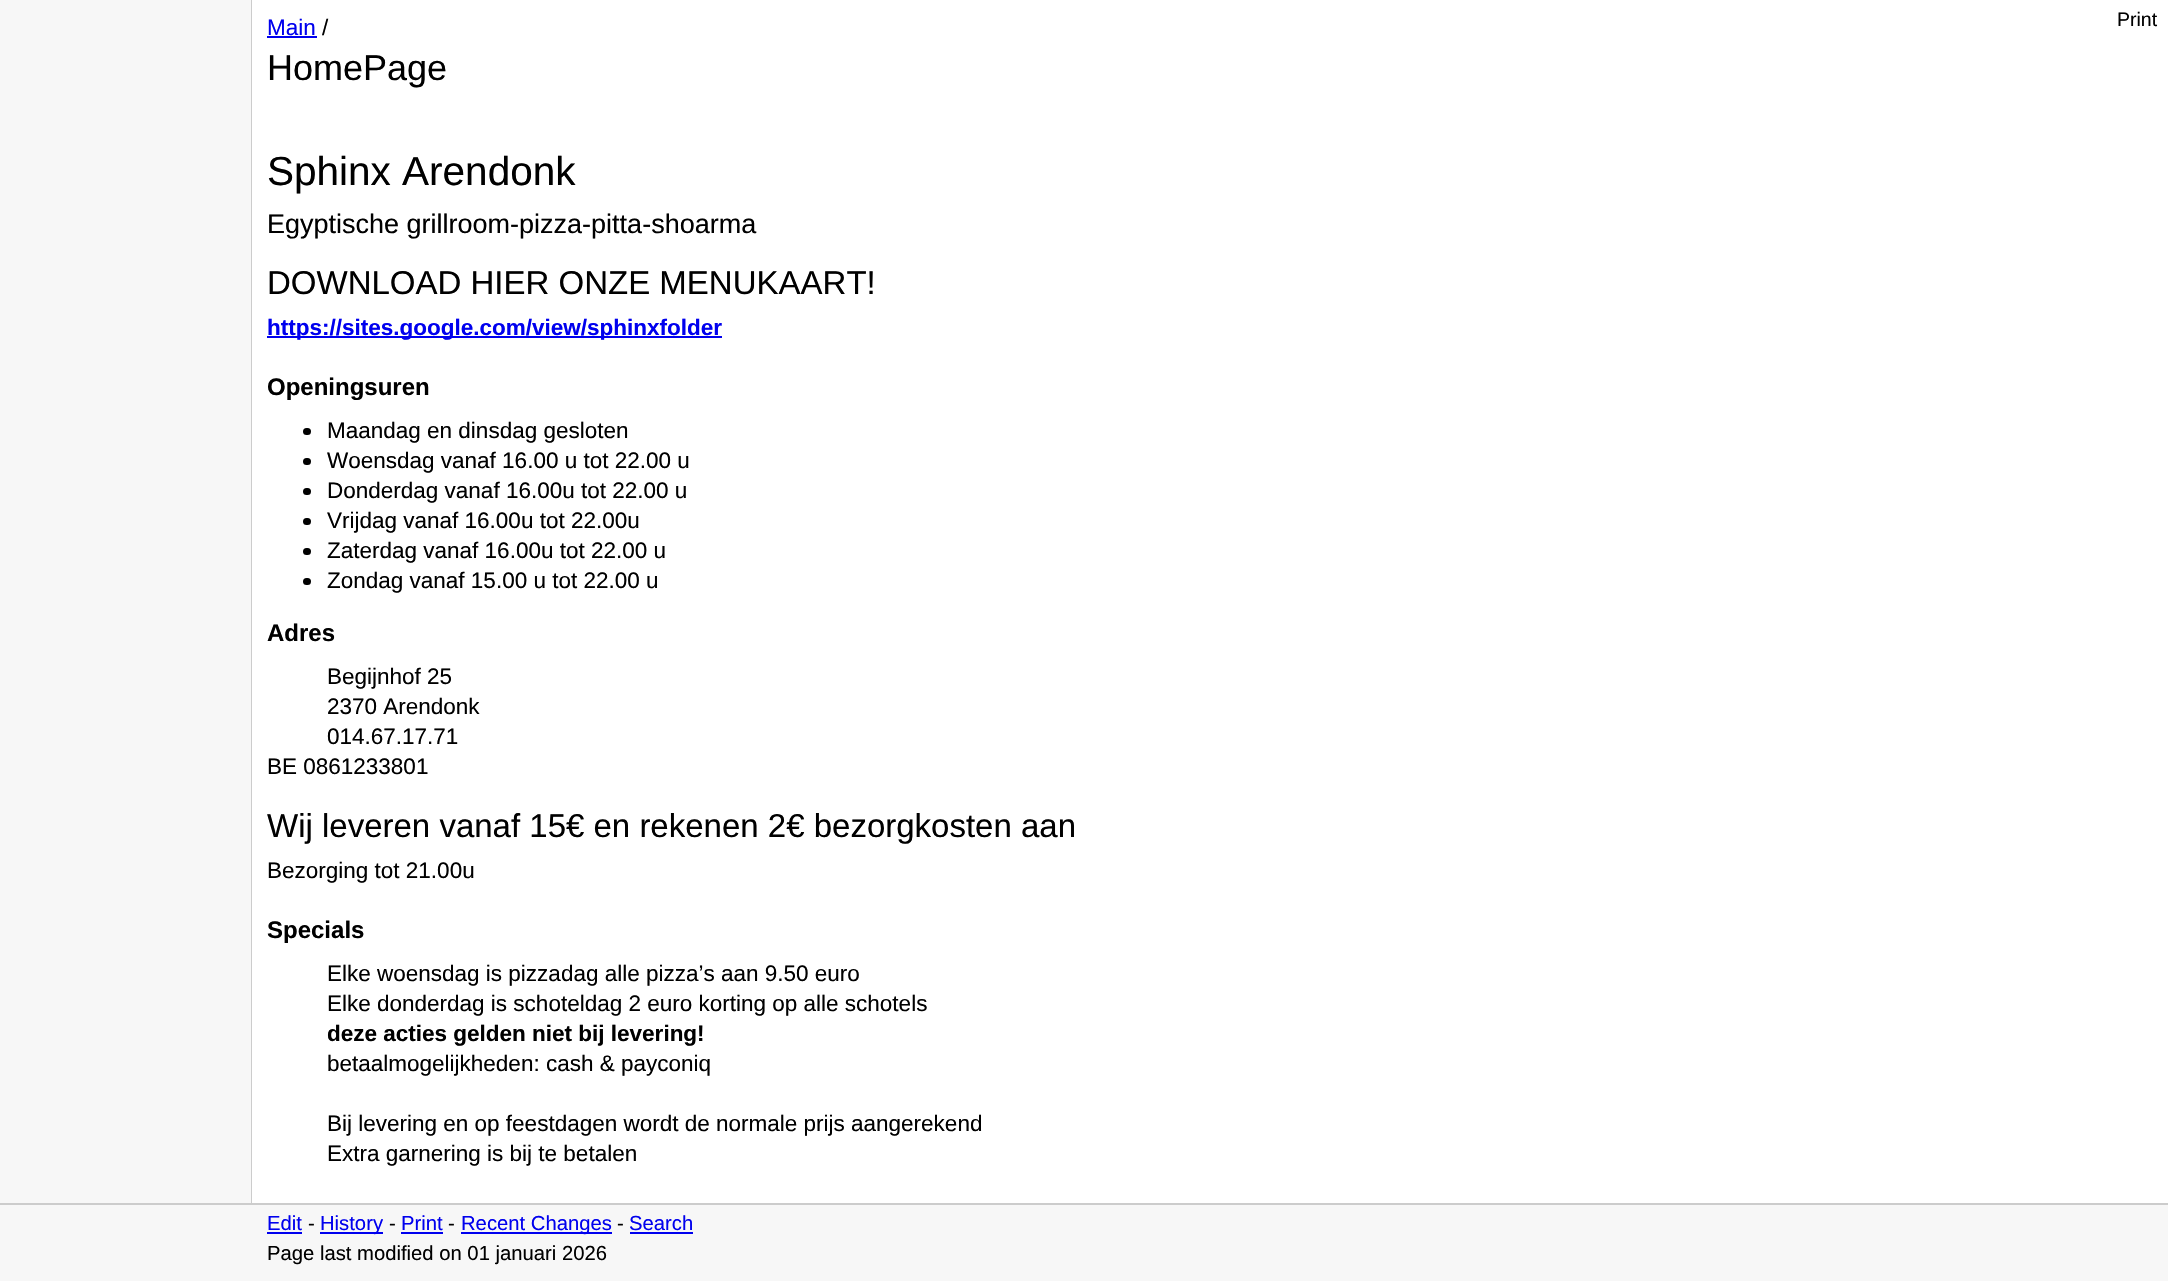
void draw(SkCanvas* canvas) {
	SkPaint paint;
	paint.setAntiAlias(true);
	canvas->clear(0xfff7f7f7);
	paint.setColor(0xffcccccc);
	canvas->drawRect(SkRect::MakeXYWH(251, 0, 1, 1203), paint);
	paint.setColor(0xffffffff);
	canvas->drawRect(SkRect::MakeXYWH(252, 0, 1916, 1203), paint);
	SkFont f1(fontMgr->matchFamilyStyle("Liberation Sans", SkFontStyle::Normal()), 22.5);
	f1.setSubpixel(true);
	paint.setColor(0xff0000ee);
	canvas->drawString("Main", 267, 35, f1, paint);
	canvas->drawRect(SkRect::MakeXYWH(267, 36, 50, 2), paint);
	paint.setColor(0xff000000);
	canvas->drawString("/", 322, 35, f1, paint);
	SkFont f2(fontMgr->matchFamilyStyle("Liberation Sans", SkFontStyle::Normal()), 36);
	f2.setSubpixel(true);
	canvas->drawString("HomePage", 267, 80, f2, paint);
	SkFont f3(fontMgr->matchFamilyStyle("Liberation Sans", SkFontStyle::Normal()), 19.5);
	f3.setSubpixel(true);
	canvas->drawString("Print", 2117, 26, f3, paint);
	SkFont f4(fontMgr->matchFamilyStyle("Liberation Sans", SkFontStyle::Normal()), 40.5);
	f4.setSubpixel(true);
	canvas->drawString("Sphinx Arendonk", 267, 185, f4, paint);
	SkFont f5(fontMgr->matchFamilyStyle("Liberation Sans", SkFontStyle::Normal()), 27);
	f5.setSubpixel(true);
	canvas->drawString("Egyptische grillroom-pizza-pitta-shoarma", 267, 233, f5, paint);
	SkFont f6(fontMgr->matchFamilyStyle("Liberation Sans", SkFontStyle::Normal()), 33);
	f6.setSubpixel(true);
	canvas->drawString("DOWNLOAD HIER ONZE MENUKAART!", 267, 294, f6, paint);
	paint.setColor(0xff0000ee);
	canvas->drawRect(SkRect::MakeXYWH(267, 336, 455, 2), paint);
	SkFont f7(fontMgr->matchFamilyStyle("Liberation Sans", SkFontStyle::Bold()), 22.5);
	f7.setSubpixel(true);
	canvas->drawString("https://sites.google.com/view/sphinxfolder", 267, 335, f7, paint);
	SkFont f8(fontMgr->matchFamilyStyle("Liberation Sans", SkFontStyle::Bold()), 24);
	f8.setSubpixel(true);
	paint.setColor(0xff000000);
	canvas->drawString("Openingsuren", 267, 395, f8, paint);
	canvas->drawRoundRect(SkRect::MakeXYWH(303, 428, 8, 7), 3.5, 3.5, paint);
	canvas->drawString("Maandag en dinsdag gesloten", 327, 438, f1, paint);
	canvas->drawRoundRect(SkRect::MakeXYWH(303, 458, 8, 7), 3.5, 3.5, paint);
	canvas->drawString("Woensdag vanaf 16.00 u tot 22.00 u", 327, 468, f1, paint);
	canvas->drawRoundRect(SkRect::MakeXYWH(303, 488, 8, 7), 3.5, 3.5, paint);
	canvas->drawString("Donderdag vanaf 16.00u tot 22.00 u", 327, 498, f1, paint);
	canvas->drawRoundRect(SkRect::MakeXYWH(303, 518, 8, 7), 3.5, 3.5, paint);
	canvas->drawString("Vrijdag vanaf 16.00u tot 22.00u", 327, 528, f1, paint);
	canvas->drawRoundRect(SkRect::MakeXYWH(303, 548, 8, 7), 3.5, 3.5, paint);
	canvas->drawString("Zaterdag vanaf 16.00u tot 22.00 u", 327, 558, f1, paint);
	canvas->drawRoundRect(SkRect::MakeXYWH(303, 578, 8, 7), 3.5, 3.5, paint);
	canvas->drawString("Zondag vanaf 15.00 u tot 22.00 u", 327, 588, f1, paint);
	canvas->drawString("Adres", 267, 641, f8, paint);
	canvas->drawString("Begijnhof 25", 327, 684, f1, paint);
	canvas->drawString("2370 Arendonk", 327, 714, f1, paint);
	canvas->drawString("014.67.17.71", 327, 744, f1, paint);
	canvas->drawString("BE 0861233801", 267, 774, f1, paint);
	canvas->drawString("Wij leveren vanaf 15€ en rekenen 2€ bezorgkosten aan", 267, 837, f6, paint);
	canvas->drawString("Bezorging tot 21.00u", 267, 878, f1, paint);
	canvas->drawString("Specials", 267, 938, f8, paint);
	canvas->drawString("Elke woensdag is pizzadag alle pizza’s aan 9.50 euro", 327, 981, f1, paint);
	canvas->drawString("Elke donderdag is schoteldag 2 euro korting op alle schotels", 327, 1011, f1, paint);
	canvas->drawString("deze acties gelden niet bij levering!", 327, 1041, f7, paint);
	canvas->drawString("betaalmogelijkheden: cash & payconiq", 327, 1071, f1, paint);
	canvas->drawString("Bij levering en op feestdagen wordt de normale prijs aangerekend", 327, 1131, f1, paint);
	canvas->drawString("Extra garnering is bij te betalen", 327, 1161, f1, paint);
	paint.setColor(0xffcccccc);
	canvas->drawRect(SkRect::MakeXYWH(0, 1203, 2168, 2), paint);
	SkFont f9(fontMgr->matchFamilyStyle("Liberation Sans", SkFontStyle::Normal()), 20.25);
	f9.setSubpixel(true);
	paint.setColor(0xff0000ee);
	canvas->drawString("Edit", 267, 1230, f9, paint);
	canvas->drawRect(SkRect::MakeXYWH(267, 1232, 35, 2), paint);
	paint.setColor(0xff000000);
	canvas->drawString("-", 308, 1230, f9, paint);
	paint.setColor(0xff0000ee);
	canvas->drawRect(SkRect::MakeXYWH(320, 1232, 63, 2), paint);
	canvas->drawString("History", 320, 1230, f9, paint);
	paint.setColor(0xff000000);
	canvas->drawString("-", 389, 1230, f9, paint);
	paint.setColor(0xff0000ee);
	canvas->drawString("Print", 401, 1230, f9, paint);
	canvas->drawRect(SkRect::MakeXYWH(401, 1232, 42, 2), paint);
	paint.setColor(0xff000000);
	canvas->drawString("-", 448, 1230, f9, paint);
	paint.setColor(0xff0000ee);
	canvas->drawRect(SkRect::MakeXYWH(461, 1232, 151, 2), paint);
	canvas->drawString("Recent Changes", 461, 1230, f9, paint);
	paint.setColor(0xff000000);
	canvas->drawString("-", 617, 1230, f9, paint);
	paint.setColor(0xff0000ee);
	canvas->drawString("Search", 629, 1230, f9, paint);
	canvas->drawRect(SkRect::MakeXYWH(630, 1232, 63, 2), paint);
	paint.setColor(0xff000000);
	canvas->drawString("Page last modified on 01 januari 2026", 267, 1260, f9, paint);
}
